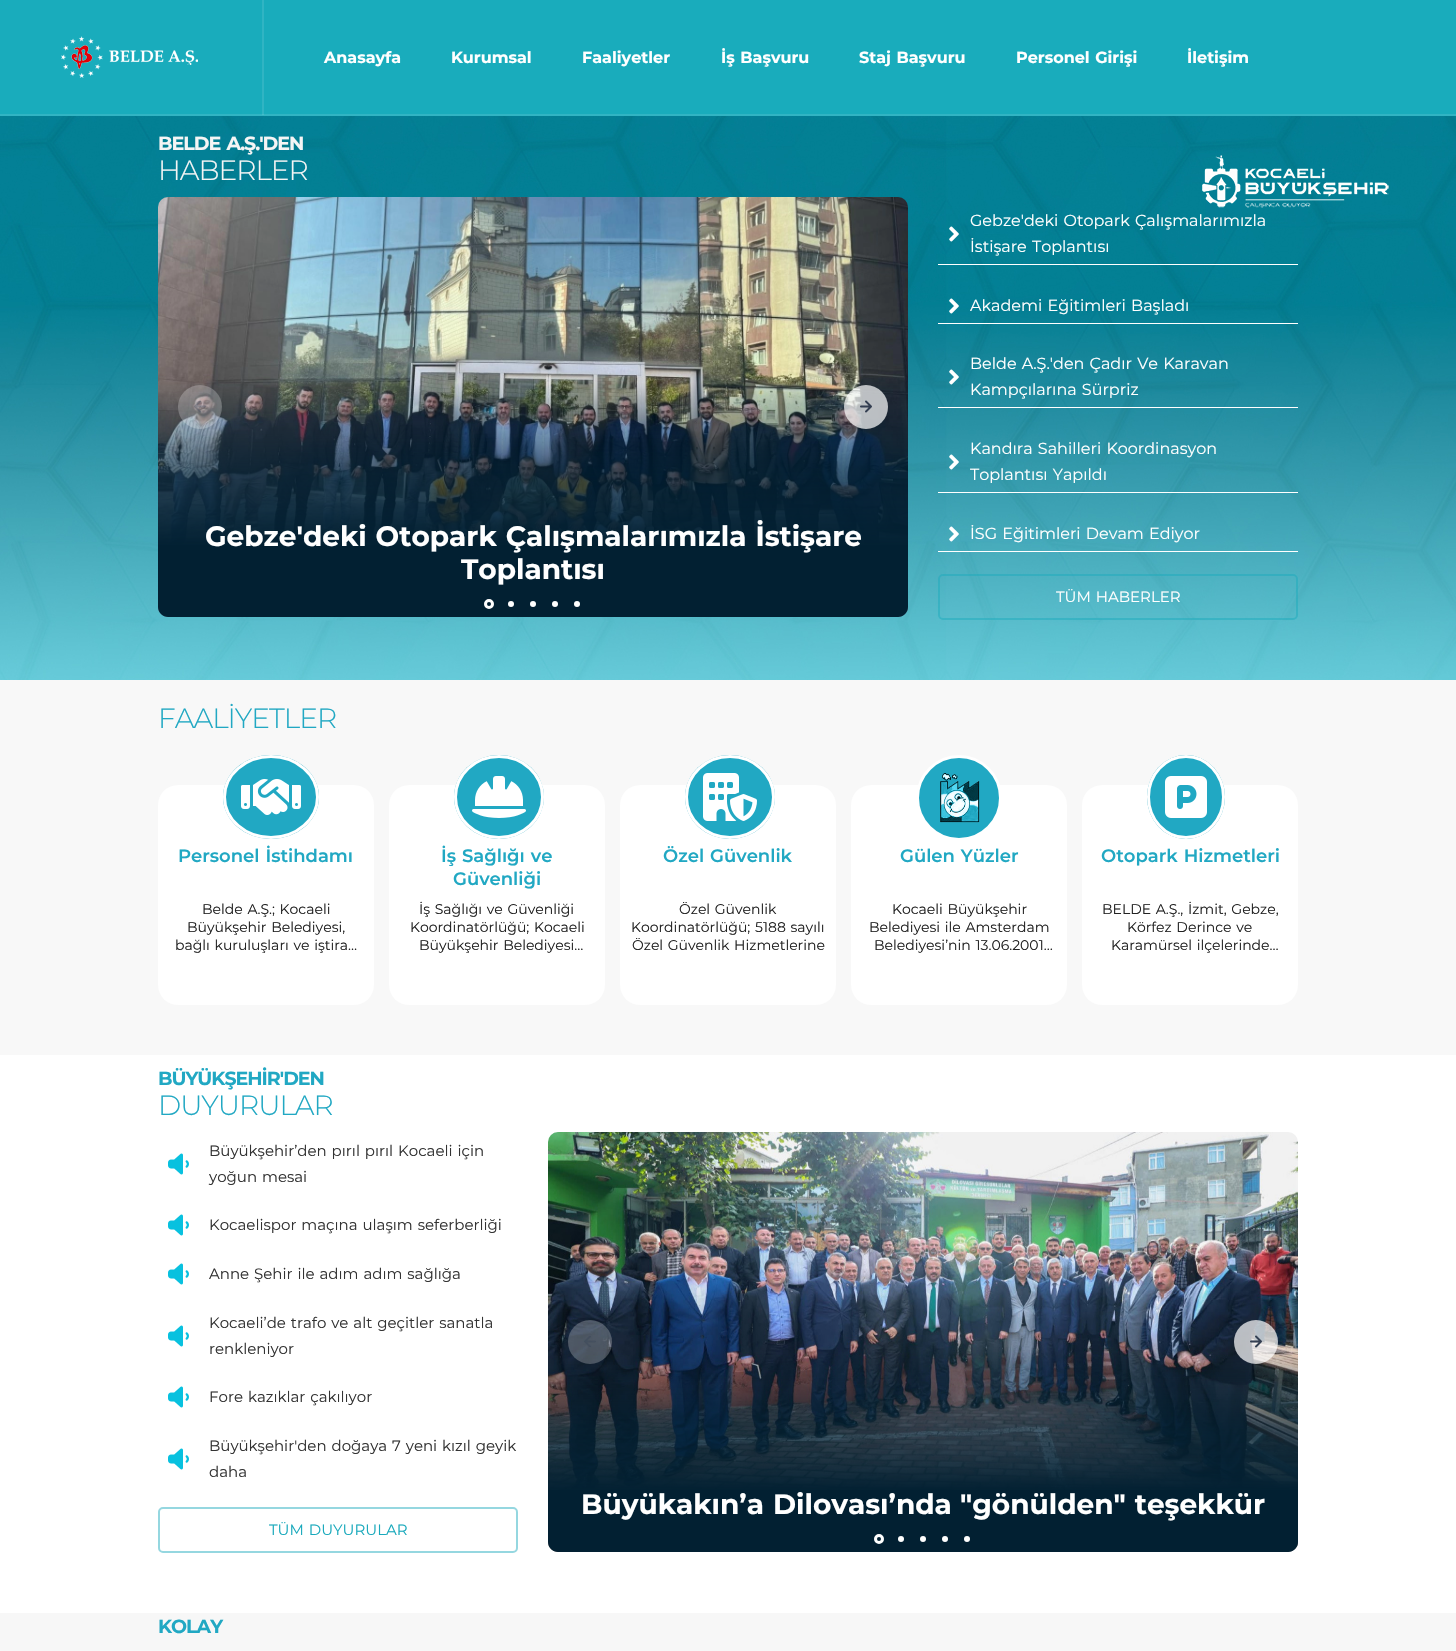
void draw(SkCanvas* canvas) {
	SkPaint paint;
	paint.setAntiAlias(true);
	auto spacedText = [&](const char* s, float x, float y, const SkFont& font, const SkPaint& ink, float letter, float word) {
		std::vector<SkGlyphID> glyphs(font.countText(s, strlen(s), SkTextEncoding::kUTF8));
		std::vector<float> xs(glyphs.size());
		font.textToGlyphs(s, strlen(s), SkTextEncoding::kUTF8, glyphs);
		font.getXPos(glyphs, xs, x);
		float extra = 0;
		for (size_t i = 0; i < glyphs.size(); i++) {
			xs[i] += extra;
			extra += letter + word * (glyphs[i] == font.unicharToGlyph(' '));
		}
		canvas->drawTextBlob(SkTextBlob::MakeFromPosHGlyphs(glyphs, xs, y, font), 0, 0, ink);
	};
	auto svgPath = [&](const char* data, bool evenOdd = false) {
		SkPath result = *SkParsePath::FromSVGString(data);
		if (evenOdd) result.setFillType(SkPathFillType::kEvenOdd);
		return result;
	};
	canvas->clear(0xffffffff);
	paint.setColor(0xff19acbc);
	canvas->drawRect(SkRect::MakeXYWH(0, 0, 1456, 116), paint);
	canvas->drawImageRect(SkImages::DeferredFromEncodedData(SkData::MakeFromFileName("img1.png")), SkRect::MakeXYWH(61, 36, 137, 42), SkSamplingOptions());
	paint.setColor(0xff30b4c3);
	canvas->drawRect(SkRect::MakeXYWH(262, 0, 2, 115), paint);
	SkFont f1(fontMgr->matchFamilyStyle("Montserrat", SkFontStyle::Bold()), 16);
	f1.setSubpixel(true);
	paint.setColor(0xffffffff);
	canvas->drawString("Anasayfa", 324, 63, f1, paint);
	canvas->drawString("Kurumsal", 451, 63, f1, paint);
	canvas->drawString("Faaliyetler", 582, 63, f1, paint);
	spacedText("İş Başvuru", 721, 63, f1, paint, 0, 1);
	spacedText("Staj Başvuru", 859, 63, f1, paint, 0, 1);
	spacedText("Personel Girişi", 1016, 63, f1, paint, 0, 1);
	canvas->drawString("İletişim", 1187, 63, f1, paint);
	canvas->drawImageRect(SkImages::DeferredFromEncodedData(SkData::MakeFromFileName("img3.png")), SkRect::MakeXYWH(0, 116, 1456, 564), SkSamplingOptions());
	canvas->drawImageRect(SkImages::DeferredFromEncodedData(SkData::MakeFromFileName("img2.png")), SkRect::MakeXYWH(1202, 155, 187, 53), SkSamplingOptions());
	paint.setColor(0x1affffff);
	canvas->drawRect(SkRect::MakeXYWH(0, 114, 1456, 2), paint);
	SkFont f2(fontMgr->matchFamilyStyle("Montserrat", SkFontStyle::Bold()), 19);
	f2.setSubpixel(true);
	paint.setColor(0xfff5f5f5);
	spacedText("BELDE A.Ş.'DEN", 158, 150, f2, paint, -1, 2);
	SkFont f3(fontMgr->matchFamilyStyle("Montserrat", SkFontStyle(300, SkFontStyle::kNormal_Width, SkFontStyle::kUpright_Slant)), 28);
	f3.setSubpixel(true);
	spacedText("HABERLER", 158, 180, f3, paint, -1, 0);
	canvas->drawImageRect(SkImages::DeferredFromEncodedData(SkData::MakeFromFileName("img6.png")), SkRect::MakeXYWH(158, 197, 750, 420), SkSamplingOptions());
	{
		const SkColor colors[] = {0xff022032, 0xab022032, 0x00022032};
		const float stops[] = {0.3, 0.61, 0.99};
		const SkPoint ends[] = {{533, 617}, {533, 380}};
		paint.setShader(SkGradientShader::MakeLinear(ends, colors, stops, 3, SkTileMode::kClamp));
		paint.setAlpha(255);
	}
	canvas->drawPath(svgPath("M158 380H908V607C908 612.5 903.5 617 898 617H168C162.5 617 158 612.5 158 607Z"), paint);
	paint.setShader(nullptr);
	paint.setColor(0x3dffffff);
	canvas->drawCircle(200, 407, 22, paint);
	canvas->drawImageRect(SkImages::DeferredFromEncodedData(SkData::MakeFromFileName("img4.png")), SkRect::MakeXYWH(194, 400, 12, 13), SkSamplingOptions());
	paint.setColor(0xb3ffffff);
	canvas->drawCircle(866, 407, 22, paint);
	canvas->drawImageRect(SkImages::DeferredFromEncodedData(SkData::MakeFromFileName("img5.png")), SkRect::MakeXYWH(860, 400, 12, 13), SkSamplingOptions());
	SkFont f4(fontMgr->matchFamilyStyle("Montserrat", SkFontStyle::Bold()), 28);
	f4.setSubpixel(true);
	paint.setColor(0xffffffff);
	spacedText("Gebze'deki Otopark Çalışmalarımızla İstişare", 205, 546, f4, paint, 0, 1);
	canvas->drawString("Toplantısı", 461, 579, f4, paint);
	paint.setStroke(true);
	paint.setStrokeWidth(3);
	canvas->drawCircle(489, 604, 3.5, paint);
	paint.setStroke(false);
	canvas->drawCircle(511, 604, 3, paint);
	canvas->drawCircle(533, 604, 3, paint);
	canvas->drawCircle(555, 604, 3, paint);
	canvas->drawCircle(577, 604, 3, paint);
	canvas->drawRect(SkRect::MakeXYWH(938, 264, 360, 1), paint);
	canvas->drawImageRect(SkImages::DeferredFromEncodedData(SkData::MakeFromFileName("img7.png")), SkRect::MakeXYWH(949, 226, 10, 16), SkSamplingOptions());
	SkFont f5(fontMgr->matchFamilyStyle("Montserrat", SkFontStyle::Normal()), 16);
	f5.setSubpixel(true);
	spacedText("Gebze'deki Otopark Çalışmalarımızla", 970, 226, f5, paint, 0, 1);
	spacedText("İstişare Toplantısı", 970, 252, f5, paint, 0, 1);
	canvas->drawRect(SkRect::MakeXYWH(938, 323, 360, 1), paint);
	canvas->drawImageRect(SkImages::DeferredFromEncodedData(SkData::MakeFromFileName("img8.png")), SkRect::MakeXYWH(949, 298, 10, 16), SkSamplingOptions());
	spacedText("Akademi Eğitimleri Başladı", 970, 311, f5, paint, 0, 1);
	canvas->drawRect(SkRect::MakeXYWH(938, 407, 360, 1), paint);
	canvas->drawImageRect(SkImages::DeferredFromEncodedData(SkData::MakeFromFileName("img9.png")), SkRect::MakeXYWH(949, 369, 10, 16), SkSamplingOptions());
	spacedText("Belde A.Ş.'den Çadır Ve Karavan", 970, 369, f5, paint, 0, 1);
	spacedText("Kampçılarına Sürpriz", 970, 395, f5, paint, 0, 1);
	canvas->drawRect(SkRect::MakeXYWH(938, 492, 360, 1), paint);
	canvas->drawImageRect(SkImages::DeferredFromEncodedData(SkData::MakeFromFileName("img10.png")), SkRect::MakeXYWH(949, 454, 10, 16), SkSamplingOptions());
	spacedText("Kandıra Sahilleri Koordinasyon", 970, 454, f5, paint, 0, 1);
	spacedText("Toplantısı Yapıldı", 970, 480, f5, paint, 0, 1);
	canvas->drawRect(SkRect::MakeXYWH(938, 551, 360, 1), paint);
	canvas->drawImageRect(SkImages::DeferredFromEncodedData(SkData::MakeFromFileName("img11.png")), SkRect::MakeXYWH(949, 526, 10, 16), SkSamplingOptions());
	spacedText("İSG Eğitimleri Devam Ediyor", 970, 539, f5, paint, 0, 1);
	paint.setStroke(true);
	paint.setStrokeWidth(2);
	paint.setColor(0x7519a9bc);
	canvas->drawRoundRect(SkRect::MakeXYWH(939, 575, 358, 44), 4, 4, paint);
	SkFont f6(fontMgr->matchFamilyStyle("Montserrat", SkFontStyle::Normal()), 15);
	f6.setSubpixel(true);
	paint.setStroke(false);
	paint.setColor(0xffffffff);
	spacedText("TÜM HABERLER", 1056, 602, f6, paint, 0, 1);
	paint.setColor(0xfff8f8f8);
	canvas->drawRect(SkRect::MakeXYWH(0, 680, 1456, 375), paint);
	paint.setColor(0xff21a8c3);
	spacedText("FAALİYETLER", 158, 728, f3, paint, -1, 0);
	paint.setColor(0xffffffff);
	canvas->drawRoundRect(SkRect::MakeXYWH(158, 785, 216, 220), 20, 20, paint);
	paint.setColor(0xff21a8c3);
	canvas->drawOval(SkRect::MakeXYWH(223, 755, 96, 84), paint);
	paint.setStroke(true);
	paint.setStrokeWidth(3);
	paint.setColor(0xffffffff);
	canvas->drawPath(svgPath("M271 756.5C296.5 756.5 317.5 774.5 317.5 797C317.5 819.5 296.5 837.5 271 837.5C245.5 837.5 224.5 819.5 224.5 797C224.5 774.5 245.5 756.5 271 756.5Z"), paint);
	canvas->drawImageRect(SkImages::DeferredFromEncodedData(SkData::MakeFromFileName("img12.png")), SkRect::MakeXYWH(241, 779, 60, 36), SkSamplingOptions());
	SkFont f7(fontMgr->matchFamilyStyle("Montserrat", SkFontStyle(600, SkFontStyle::kNormal_Width, SkFontStyle::kUpright_Slant)), 18);
	f7.setSubpixel(true);
	paint.setStroke(false);
	paint.setColor(0xff21a8c3);
	spacedText("Personel İstihdamı", 178, 862, f7, paint, 0, 1);
	SkFont f8(fontMgr->matchFamilyStyle("Montserrat", SkFontStyle::Normal()), 14);
	f8.setSubpixel(true);
	paint.setColor(0xff222222);
	spacedText("Belde A.Ş.; Kocaeli", 202, 914, f8, paint, 0, 1);
	spacedText("Büyükşehir Belediyesi,", 187, 932, f8, paint, 0, 1);
	spacedText("bağlı kuruluşları ve iştira…", 175, 950, f8, paint, 0, 1);
	paint.setColor(0xffffffff);
	canvas->drawRoundRect(SkRect::MakeXYWH(389, 785, 216, 220), 20, 20, paint);
	paint.setColor(0xff21a8c3);
	canvas->drawOval(SkRect::MakeXYWH(454, 755, 90, 84), paint);
	paint.setStroke(true);
	paint.setColor(0xffffffff);
	canvas->drawPath(svgPath("M499 756.5C523 756.5 542.5 774.5 542.5 797C542.5 819.5 523 837.5 499 837.5C475 837.5 455.5 819.5 455.5 797C455.5 774.5 475 756.5 499 756.5Z"), paint);
	canvas->drawImageRect(SkImages::DeferredFromEncodedData(SkData::MakeFromFileName("img13.png")), SkRect::MakeXYWH(472, 776, 54, 42), SkSamplingOptions());
	paint.setStroke(false);
	paint.setColor(0xff21a8c3);
	spacedText("İş Sağlığı ve", 441, 862, f7, paint, 0, 1);
	canvas->drawString("Güvenliği", 453, 885, f7, paint);
	paint.setColor(0xff222222);
	spacedText("İş Sağlığı ve Güvenliği", 419, 914, f8, paint, 0, 1);
	spacedText("Koordinatörlüğü; Kocaeli", 410, 932, f8, paint, 0, 1);
	spacedText("Büyükşehir Belediyesi…", 419, 950, f8, paint, 0, 1);
	paint.setColor(0xffffffff);
	canvas->drawRoundRect(SkRect::MakeXYWH(620, 785, 216, 220), 20, 20, paint);
	paint.setColor(0xff21a8c3);
	canvas->drawOval(SkRect::MakeXYWH(685, 755, 90, 84), paint);
	paint.setStroke(true);
	paint.setColor(0xffffffff);
	canvas->drawPath(svgPath("M730 756.5C754 756.5 773.5 774.5 773.5 797C773.5 819.5 754 837.5 730 837.5C706 837.5 686.5 819.5 686.5 797C686.5 774.5 706 756.5 730 756.5Z"), paint);
	canvas->drawImageRect(SkImages::DeferredFromEncodedData(SkData::MakeFromFileName("img14.png")), SkRect::MakeXYWH(703, 773, 54, 48), SkSamplingOptions());
	paint.setStroke(false);
	paint.setColor(0xff21a8c3);
	spacedText("Özel Güvenlik", 663, 862, f7, paint, 0, 1);
	paint.setColor(0xff222222);
	spacedText("Özel Güvenlik", 679, 914, f8, paint, 0, 1);
	spacedText("Koordinatörlüğü; 5188 sayılı", 631, 932, f8, paint, 0, 1);
	spacedText("Özel Güvenlik Hizmetlerine", 632, 950, f8, paint, 0, 1);
	paint.setColor(0xffffffff);
	canvas->drawRoundRect(SkRect::MakeXYWH(851, 785, 216, 220), 20, 20, paint);
	paint.setColor(0xff21a8c3);
	canvas->drawCircle(959, 798, 41.5, paint);
	paint.setStroke(true);
	paint.setColor(0xffffffff);
	canvas->drawCircle(959, 798, 41.5, paint);
	canvas->drawImageRect(SkImages::DeferredFromEncodedData(SkData::MakeFromFileName("img15.png")), SkRect::MakeXYWH(940, 773, 40, 50), SkSamplingOptions());
	paint.setStroke(false);
	paint.setColor(0xff21a8c3);
	spacedText("Gülen Yüzler", 900, 862, f7, paint, 0, 1);
	paint.setColor(0xff222222);
	spacedText("Kocaeli Büyükşehir", 892, 914, f8, paint, 0, 1);
	spacedText("Belediyesi ile Amsterdam", 869, 932, f8, paint, 0, 1);
	spacedText("Belediyesi’nin 13.06.2001…", 874, 950, f8, paint, 0, 1);
	paint.setColor(0xffffffff);
	canvas->drawRoundRect(SkRect::MakeXYWH(1082, 785, 216, 220), 20, 20, paint);
	paint.setColor(0xff21a8c3);
	canvas->drawOval(SkRect::MakeXYWH(1147, 755, 78, 84), paint);
	paint.setStroke(true);
	paint.setColor(0xffffffff);
	canvas->drawPath(svgPath("M1186 756.5C1206.5 756.5 1223.5 774.5 1223.5 797C1223.5 819.5 1206.5 837.5 1186 837.5C1165.5 837.5 1148.5 819.5 1148.5 797C1148.5 774.5 1165.5 756.5 1186 756.5Z"), paint);
	canvas->drawImageRect(SkImages::DeferredFromEncodedData(SkData::MakeFromFileName("img16.png")), SkRect::MakeXYWH(1165, 776, 42, 42), SkSamplingOptions());
	paint.setStroke(false);
	paint.setColor(0xff21a8c3);
	spacedText("Otopark Hizmetleri", 1101, 862, f7, paint, 0, 1);
	paint.setColor(0xff222222);
	spacedText("BELDE A.Ş., İzmit, Gebze,", 1102, 914, f8, paint, 0, 1);
	spacedText("Körfez Derince ve", 1127, 932, f8, paint, 0, 1);
	spacedText("Karamürsel ilçelerinde…", 1111, 950, f8, paint, 0, 1);
	paint.setColor(0xff21a8c3);
	spacedText("BÜYÜKŞEHİR'DEN", 158, 1085, f2, paint, -1, 0);
	spacedText("DUYURULAR", 158, 1115, f3, paint, -1, 0);
	canvas->drawImageRect(SkImages::DeferredFromEncodedData(SkData::MakeFromFileName("img17.png")), SkRect::MakeXYWH(168, 1153, 21, 22), SkSamplingOptions());
	paint.setColor(0xff333333);
	spacedText("Büyükşehir’den pırıl pırıl Kocaeli için", 209, 1156, f6, paint, 0, 1);
	spacedText("yoğun mesai", 209, 1182, f6, paint, 0, 1);
	canvas->drawImageRect(SkImages::DeferredFromEncodedData(SkData::MakeFromFileName("img17.png")), SkRect::MakeXYWH(168, 1214, 21, 22), SkSamplingOptions());
	spacedText("Kocaelispor maçına ulaşım seferberliği", 209, 1230, f6, paint, 0, 1);
	canvas->drawImageRect(SkImages::DeferredFromEncodedData(SkData::MakeFromFileName("img17.png")), SkRect::MakeXYWH(168, 1263, 21, 22), SkSamplingOptions());
	spacedText("Anne Şehir ile adım adım sağlığa", 209, 1279, f6, paint, 0, 1);
	canvas->drawImageRect(SkImages::DeferredFromEncodedData(SkData::MakeFromFileName("img17.png")), SkRect::MakeXYWH(168, 1325, 21, 22), SkSamplingOptions());
	spacedText("Kocaeli’de trafo ve alt geçitler sanatla", 209, 1328, f6, paint, 0, 1);
	canvas->drawString("renkleniyor", 209, 1354, f6, paint);
	canvas->drawImageRect(SkImages::DeferredFromEncodedData(SkData::MakeFromFileName("img17.png")), SkRect::MakeXYWH(168, 1386, 21, 22), SkSamplingOptions());
	spacedText("Fore kazıklar çakılıyor", 209, 1402, f6, paint, 0, 1);
	canvas->drawImageRect(SkImages::DeferredFromEncodedData(SkData::MakeFromFileName("img17.png")), SkRect::MakeXYWH(168, 1448, 21, 22), SkSamplingOptions());
	spacedText("Büyükşehir'den doğaya", 209, 1451, f6, paint, 0, 1);
	spacedText("7 yeni kızıl geyik", 392, 1451, f6, paint, 0, 1);
	canvas->drawString("daha", 209, 1477, f6, paint);
	paint.setStroke(true);
	paint.setStrokeWidth(2);
	paint.setColor(0xff95d7e0);
	canvas->drawRoundRect(SkRect::MakeXYWH(159, 1508, 358, 44), 4, 4, paint);
	paint.setStroke(false);
	paint.setColor(0xff19a9bc);
	spacedText("TÜM DUYURULAR", 269, 1535, f6, paint, 0, 1);
	canvas->drawImageRect(SkImages::DeferredFromEncodedData(SkData::MakeFromFileName("img20.png")), SkRect::MakeXYWH(548, 1132, 750, 420), SkSamplingOptions());
	{
		const SkColor colors[] = {0xff022032, 0xab022032, 0x00022032};
		const float stops[] = {0.3, 0.61, 0.99};
		const SkPoint ends[] = {{923, 1552}, {923, 1348}};
		paint.setShader(SkGradientShader::MakeLinear(ends, colors, stops, 3, SkTileMode::kClamp));
		paint.setAlpha(255);
	}
	canvas->drawPath(svgPath("M548 1348H1298V1542C1298 1547.5 1293.5 1552 1288 1552H558C552.5 1552 548 1547.5 548 1542Z"), paint);
	paint.setShader(nullptr);
	paint.setColor(0x3dffffff);
	canvas->drawCircle(590, 1342, 22, paint);
	canvas->drawImageRect(SkImages::DeferredFromEncodedData(SkData::MakeFromFileName("img18.png")), SkRect::MakeXYWH(584, 1336, 12, 11), SkSamplingOptions());
	paint.setColor(0xb3ffffff);
	canvas->drawCircle(1256, 1342, 22, paint);
	canvas->drawImageRect(SkImages::DeferredFromEncodedData(SkData::MakeFromFileName("img19.png")), SkRect::MakeXYWH(1250, 1335, 12, 13), SkSamplingOptions());
	paint.setColor(0xffffffff);
	spacedText("Büyükakın’a Dilovası’nda", 581, 1514, f4, paint, 0, 1);
	spacedText("\"gönülden\" teşekkür", 960, 1514, f4, paint, 0, 1);
	paint.setStroke(true);
	paint.setStrokeWidth(3);
	canvas->drawCircle(879, 1539, 3.5, paint);
	paint.setStroke(false);
	canvas->drawCircle(901, 1539, 3, paint);
	canvas->drawCircle(923, 1539, 3, paint);
	canvas->drawCircle(945, 1539, 3, paint);
	canvas->drawCircle(967, 1539, 3, paint);
	paint.setColor(0xfff7f7f7);
	canvas->drawRect(SkRect::MakeXYWH(0, 1613, 1456, 38), paint);
	paint.setColor(0xff21a8c3);
	spacedText("KOLAY", 158, 1633, f2, paint, -1, 0);
}
